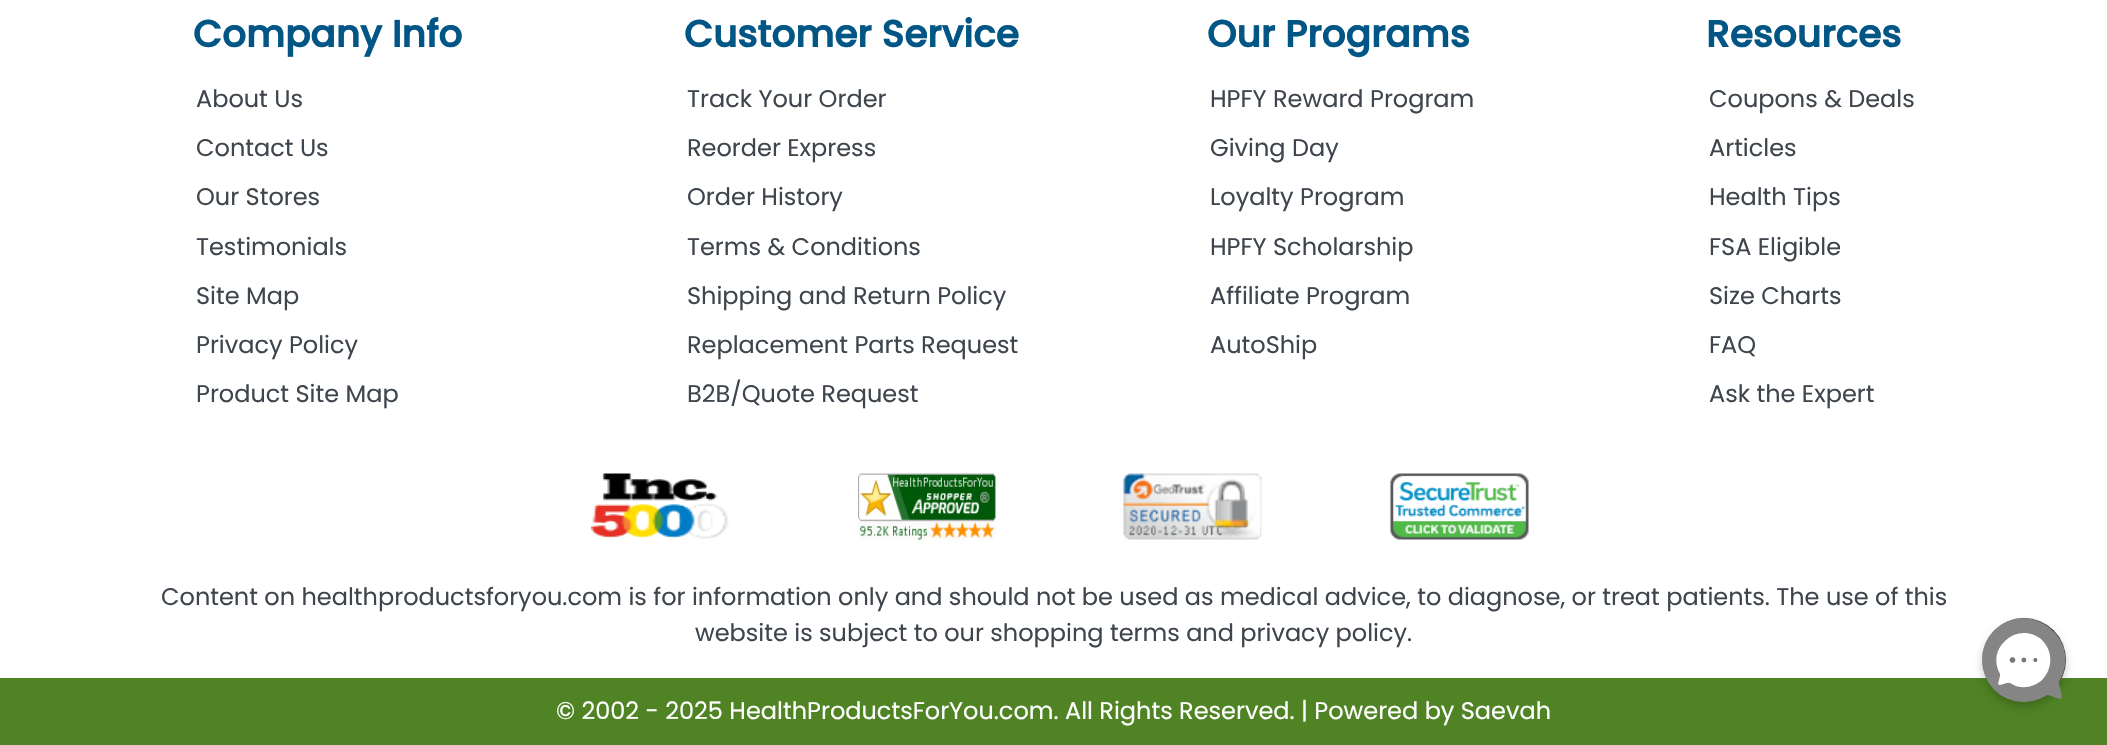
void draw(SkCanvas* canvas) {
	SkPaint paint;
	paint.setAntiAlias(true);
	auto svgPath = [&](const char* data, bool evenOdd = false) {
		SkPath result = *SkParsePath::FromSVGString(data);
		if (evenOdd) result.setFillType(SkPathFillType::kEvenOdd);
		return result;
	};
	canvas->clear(0xffffffff);
	SkFont f1(fontMgr->matchFamilyStyle("Poppins", SkFontStyle::Bold()), 37.5);
	f1.setSubpixel(true);
	paint.setColor(0xff025685);
	canvas->drawString("Company Info", 193, 47, f1, paint);
	SkFont f2(fontMgr->matchFamilyStyle("Poppins", SkFontStyle::Normal()), 24);
	f2.setSubpixel(true);
	paint.setColor(0xff3e454c);
	canvas->drawString("About Us", 196, 107, f2, paint);
	canvas->drawString("Contact Us", 196, 156, f2, paint);
	canvas->drawString("Our Stores", 196, 205, f2, paint);
	canvas->drawString("Testimonials", 196, 255, f2, paint);
	canvas->drawString("Site Map", 196, 304, f2, paint);
	canvas->drawString("Privacy Policy", 196, 353, f2, paint);
	canvas->drawString("Product Site Map", 196, 402, f2, paint);
	paint.setColor(0xff025685);
	canvas->drawString("Customer Service", 684, 47, f1, paint);
	paint.setColor(0xff3e454c);
	canvas->drawString("Track Your Order", 687, 107, f2, paint);
	canvas->drawString("Reorder Express", 687, 156, f2, paint);
	canvas->drawString("Order History", 687, 205, f2, paint);
	canvas->drawString("Terms & Conditions", 687, 255, f2, paint);
	canvas->drawString("Shipping and Return Policy", 687, 304, f2, paint);
	canvas->drawString("Replacement Parts Request", 687, 353, f2, paint);
	canvas->drawString("B2B/Quote Request", 687, 402, f2, paint);
	paint.setColor(0xff025685);
	canvas->drawString("Our Programs", 1207, 47, f1, paint);
	paint.setColor(0xff3e454c);
	canvas->drawString("HPFY Reward Program", 1210, 107, f2, paint);
	canvas->drawString("Giving Day", 1210, 156, f2, paint);
	canvas->drawString("Loyalty Program", 1210, 205, f2, paint);
	canvas->drawString("HPFY Scholarship", 1210, 255, f2, paint);
	canvas->drawString("Affiliate Program", 1210, 304, f2, paint);
	canvas->drawString("AutoShip", 1210, 353, f2, paint);
	paint.setColor(0xff025685);
	canvas->drawString("Resources", 1706, 47, f1, paint);
	paint.setColor(0xff3e454c);
	canvas->drawString("Coupons & Deals", 1709, 107, f2, paint);
	canvas->drawString("Articles", 1709, 156, f2, paint);
	canvas->drawString("Health Tips", 1709, 205, f2, paint);
	canvas->drawString("FSA Eligible", 1709, 255, f2, paint);
	canvas->drawString("Size Charts", 1709, 304, f2, paint);
	canvas->drawString("FAQ", 1709, 353, f2, paint);
	canvas->drawString("Ask the Expert", 1709, 402, f2, paint);
	canvas->drawImageRect(SkImages::DeferredFromEncodedData(SkData::MakeFromFileName("img1.png")), SkRect::MakeXYWH(591, 473, 138, 66), SkSamplingOptions());
	canvas->drawImageRect(SkImages::DeferredFromEncodedData(SkData::MakeFromFileName("img2.png")), SkRect::MakeXYWH(858, 473, 138, 67), SkSamplingOptions());
	canvas->drawImageRect(SkImages::DeferredFromEncodedData(SkData::MakeFromFileName("img3.png")), SkRect::MakeXYWH(1123, 473, 139, 67), SkSamplingOptions());
	canvas->drawImageRect(SkImages::DeferredFromEncodedData(SkData::MakeFromFileName("img4.png")), SkRect::MakeXYWH(1390, 473, 139, 67), SkSamplingOptions());
	canvas->drawString("Content on healthproductsforyou.com is for information only and should not be used as medical advice, to diagnose, or treat patients. The use of this", 161, 605, f2, paint);
	canvas->drawString("website is subject to our shopping terms and privacy policy.", 695, 641, f2, paint);
	paint.setColor(0xff4f8324);
	canvas->drawRect(SkRect::MakeXYWH(0, 678, 2107, 67), paint);
	paint.setColor(0xffffffff);
	canvas->drawString("© 2002 - 2025 HealthProductsForYou.com. All Rights Reserved. | Powered by Saevah", 556, 719, f2, paint);
	paint.setColor(0x33000000);
	paint.setMaskFilter(SkMaskFilter::MakeBlur(kNormal_SkBlurStyle, 4.5));
	canvas->drawRoundRect(SkRect::MakeXYWH(1982, 623, 84, 84), 42, 42, paint);
	paint.setMaskFilter(nullptr);
	{
		const SkColor colors[] = {0xffb3b3b3, 0xff222222};
		const float stops[] = {0, 1};
		const SkPoint ends[] = {{1982, 702}, {2066, 618}};
		paint.setShader(SkGradientShader::MakeLinear(ends, colors, stops, 2, SkTileMode::kClamp));
		paint.setAlpha(255);
	}
	canvas->drawCircle(2024, 660, 42, paint);
	paint.setShader(nullptr);
	paint.setColor(0xff858585);
	canvas->drawPath(svgPath("M2053 631C2036 614 2009 614 1993 632C1978 648 1979 673 1994 689C2008 703 2029 705 2045 696C2046 695 2047 695 2048 695L2060 699C2061 699 2062 698 2062 696L2059 684C2059 683 2059 682 2059 681C2069 665 2067 644 2053 631Z"), paint);
	paint.setColor(0xffffffff);
	canvas->drawPath(svgPath("M2043 679C2053 668 2053 651 2042 640C2031 630 2015 631 2005 641C1995 650 1994 663 2000 674V676L1998 684C1998 684 1999 685 2000 685L2007 683H2010C2020 690 2034 688 2043 679Z"), paint);
	canvas->drawImageRect(SkImages::DeferredFromEncodedData(SkData::MakeFromFileName("img5.png")), SkRect::MakeXYWH(2009, 657, 29, 6), SkSamplingOptions());
}
